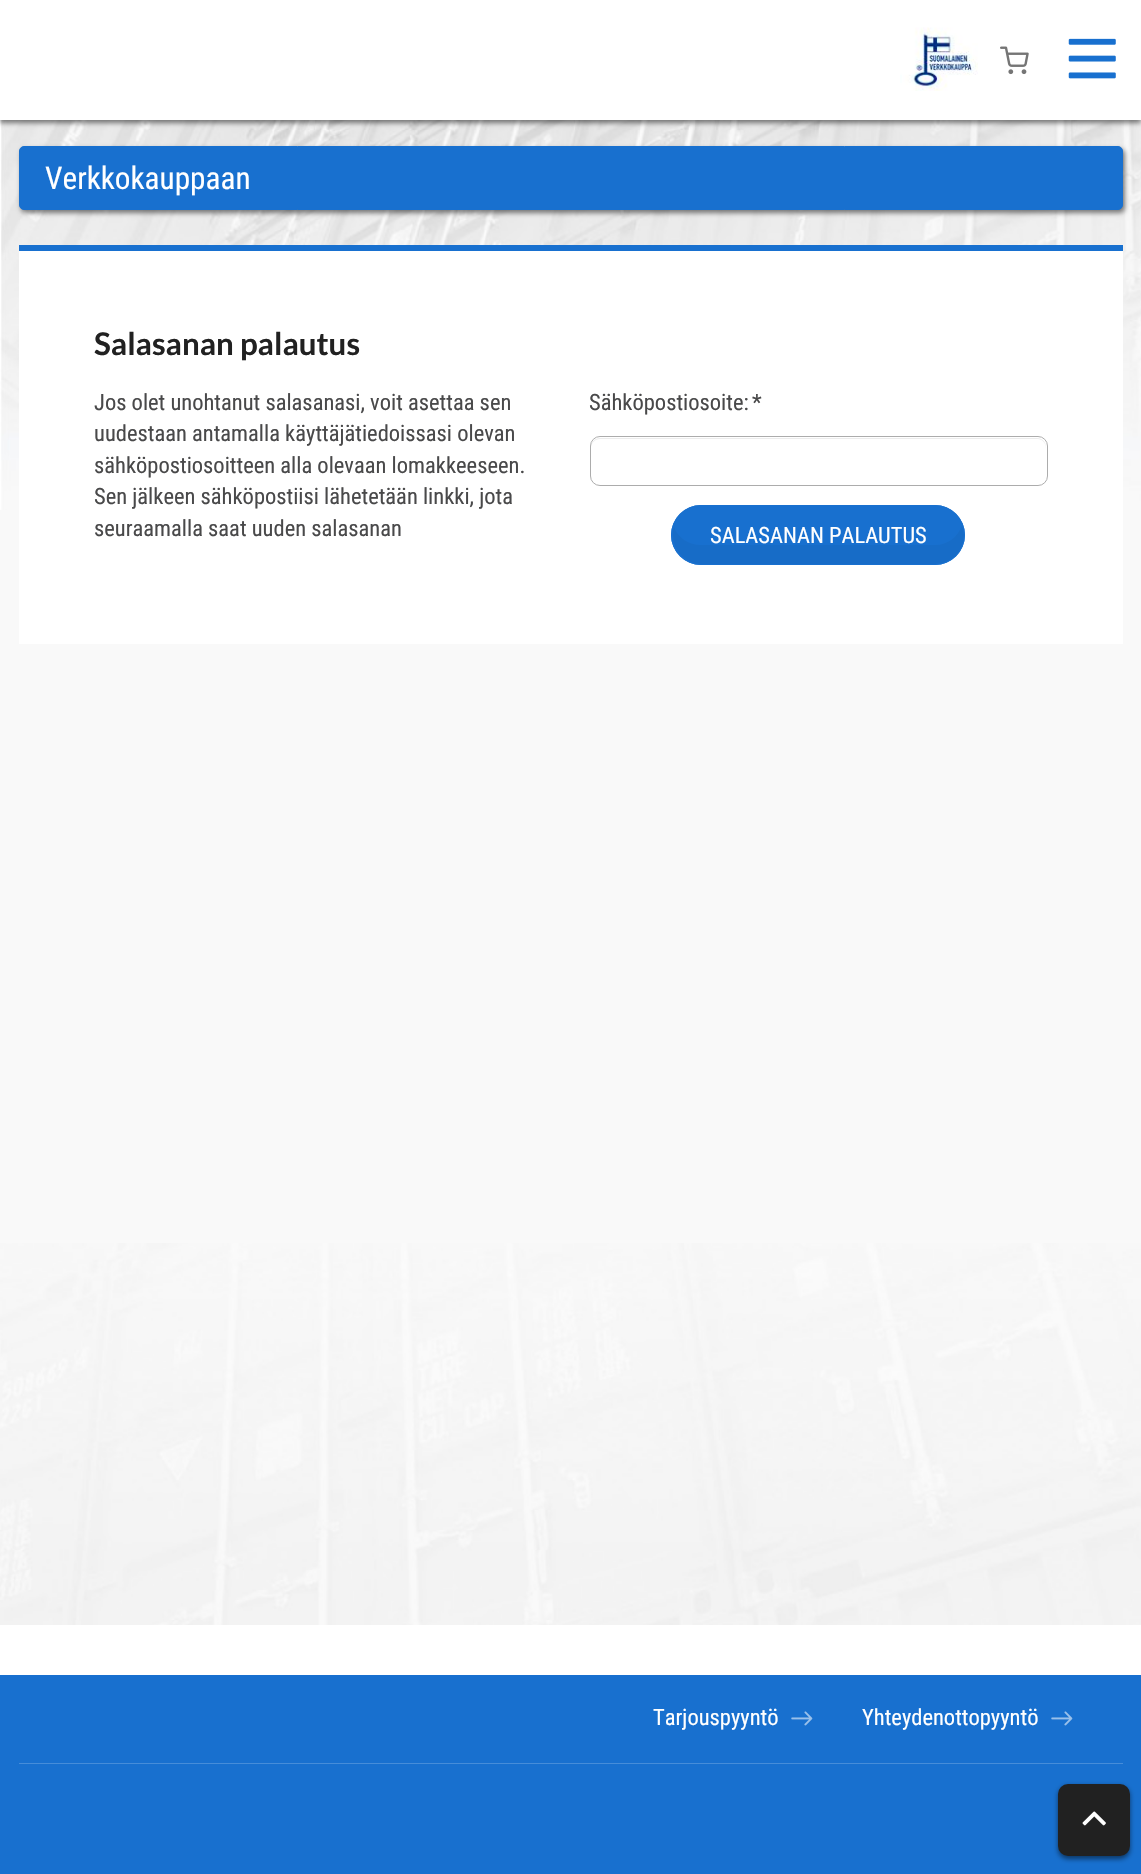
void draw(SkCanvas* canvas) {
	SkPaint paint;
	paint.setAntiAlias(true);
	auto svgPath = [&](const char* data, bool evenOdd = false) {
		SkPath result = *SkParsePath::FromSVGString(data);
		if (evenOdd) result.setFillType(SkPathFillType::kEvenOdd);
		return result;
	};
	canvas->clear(0xfff9f9f9);
	canvas->drawImageRect(SkImages::DeferredFromEncodedData(SkData::MakeFromFileName("img4.png")), SkRect::MakeXYWH(0, 120, 1141, 390), SkSamplingOptions());
	paint.setColor(0x80000000);
	paint.setMaskFilter(SkMaskFilter::MakeBlur(kNormal_SkBlurStyle, 2.5));
	canvas->drawRect(SkRect::MakeXYWH(0, 3, 1141, 120), paint);
	paint.setMaskFilter(nullptr);
	paint.setColor(0xffffffff);
	canvas->drawRect(SkRect::MakeXYWH(0, 0, 1141, 120), paint);
	canvas->drawImageRect(SkImages::DeferredFromEncodedData(SkData::MakeFromFileName("img1.png")), SkRect::MakeXYWH(900, 27, 78, 64), SkSamplingOptions());
	canvas->drawImageRect(SkImages::DeferredFromEncodedData(SkData::MakeFromFileName("img2.png")), SkRect::MakeXYWH(1000, 46, 29, 29), SkSamplingOptions());
	canvas->drawImageRect(SkImages::DeferredFromEncodedData(SkData::MakeFromFileName("img3.png")), SkRect::MakeXYWH(1068, 38, 48, 41), SkSamplingOptions());
	paint.setColor(0x80000000);
	paint.setMaskFilter(SkMaskFilter::MakeBlur(kNormal_SkBlurStyle, 2.5));
	canvas->drawRoundRect(SkRect::MakeXYWH(21, 149, 1104, 64), 5, 5, paint);
	paint.setMaskFilter(nullptr);
	paint.setColor(0xff1870cf);
	canvas->drawRoundRect(SkRect::MakeXYWH(19.5, 146.5, 1103, 63), 4.5, 4.5, paint);
	paint.setStroke(true);
	paint.setStrokeWidth(1);
	canvas->drawRoundRect(SkRect::MakeXYWH(19.5, 146.5, 1103, 63), 4.5, 4.5, paint);
	SkFont f1(fontMgr->matchFamilyStyle("Roboto Condensed", SkFontStyle::Normal()), 31.25);
	f1.setSubpixel(true);
	paint.setStroke(false);
	paint.setColor(0xffffffff);
	canvas->drawString("Verkkokauppaan", 45, 189, f1, paint);
	canvas->drawRect(SkRect::MakeXYWH(19, 251, 1104, 393), paint);
	paint.setColor(0xff1870cf);
	canvas->drawRect(SkRect::MakeXYWH(19, 245, 1104, 6), paint);
	SkFont f2(fontMgr->matchFamilyStyle("Lato", SkFontStyle::Bold()), 31.25);
	f2.setSubpixel(true);
	paint.setColor(0xff212121);
	canvas->drawString("Salasanan palautus", 94, 355, f2, paint);
	SkFont f3(fontMgr->matchFamilyStyle("Roboto Condensed", SkFontStyle::Normal()), 22.5);
	f3.setSubpixel(true);
	paint.setColor(0xff49494a);
	canvas->drawString("Jos olet unohtanut salasanasi, voit asettaa sen", 94, 410, f3, paint);
	canvas->drawString("uudestaan antamalla käyttäjätiedoissasi olevan", 94, 441, f3, paint);
	canvas->drawString("sähköpostiosoitteen alla olevaan lomakkeeseen.", 94, 473, f3, paint);
	canvas->drawString("Sen jälkeen sähköpostiisi lähetetään linkki, jota", 94, 504, f3, paint);
	canvas->drawString("seuraamalla saat uuden salasanan", 94, 536, f3, paint);
	canvas->drawString("Sähköpostiosoite:", 589, 410, f3, paint);
	canvas->drawString("*", 752, 410, f3, paint);
	paint.setColor(0xffececec);
	canvas->drawPath(svgPath("M600 439H1038C1042 439 1046 443 1046 448V447C1046 442 1042 438 1037 438H600C595 438 591 442 591 447V448C591 443 595 439 600 439Z"), paint);
	paint.setStroke(true);
	paint.setColor(0xffacacac);
	canvas->drawRoundRect(SkRect::MakeXYWH(590.5, 436.5, 457, 49), 9.5, 9.5, paint);
	paint.setStroke(false);
	paint.setColor(0xff1870cf);
	canvas->drawRoundRect(SkRect::MakeXYWH(671, 505, 294, 60), 30, 30, paint);
	paint.setColor(0xff176cc7);
	canvas->drawPath(svgPath("M674 527C673 529 673 532 673 535C673 551 686 564 702 564H935C951 564 964 551 964 535C964 532 963 528 962 525C958 537 948 545 935 545H701C689 545 678 538 674 527Z"), paint);
	paint.setStroke(true);
	paint.setColor(0xff1870cf);
	canvas->drawRoundRect(SkRect::MakeXYWH(671.5, 505.5, 293, 59), 29.5, 29.5, paint);
	paint.setStroke(false);
	paint.setColor(0xffffffff);
	canvas->drawString("SALASANAN PALAUTUS", 710, 543, f3, paint);
	canvas->drawImageRect(SkImages::DeferredFromEncodedData(SkData::MakeFromFileName("img5.png")), SkRect::MakeXYWH(0, 1243, 1141, 382), SkSamplingOptions());
	canvas->drawRect(SkRect::MakeXYWH(0, 1625, 1141, 50), paint);
	paint.setColor(0xff1870cf);
	canvas->drawRect(SkRect::MakeXYWH(0, 1675, 1141, 199), paint);
	paint.setColor(0xffffffff);
	canvas->drawString("Tarjouspyyntö", 653, 1725, f3, paint);
	canvas->drawImageRect(SkImages::DeferredFromEncodedData(SkData::MakeFromFileName("img6.png")), SkRect::MakeXYWH(791, 1711, 22, 15), SkSamplingOptions());
	canvas->drawString("Yhteydenottopyyntö", 862, 1725, f3, paint);
	canvas->drawImageRect(SkImages::DeferredFromEncodedData(SkData::MakeFromFileName("img6.png")), SkRect::MakeXYWH(1051, 1711, 22, 15), SkSamplingOptions());
	paint.setColor(0xff468dd9);
	canvas->drawRect(SkRect::MakeXYWH(19, 1763, 1104, 1), paint);
	paint.setColor(0x80000000);
	paint.setMaskFilter(SkMaskFilter::MakeBlur(kNormal_SkBlurStyle, 2.5));
	canvas->drawRoundRect(SkRect::MakeXYWH(1058, 1786, 72, 73), 10, 10, paint);
	paint.setMaskFilter(nullptr);
	paint.setColor(0xff212121);
	canvas->drawRoundRect(SkRect::MakeXYWH(1058, 1784, 72, 72), 10, 10, paint);
	canvas->drawImageRect(SkImages::DeferredFromEncodedData(SkData::MakeFromFileName("img7.png")), SkRect::MakeXYWH(1082, 1811, 24, 15), SkSamplingOptions());
}
